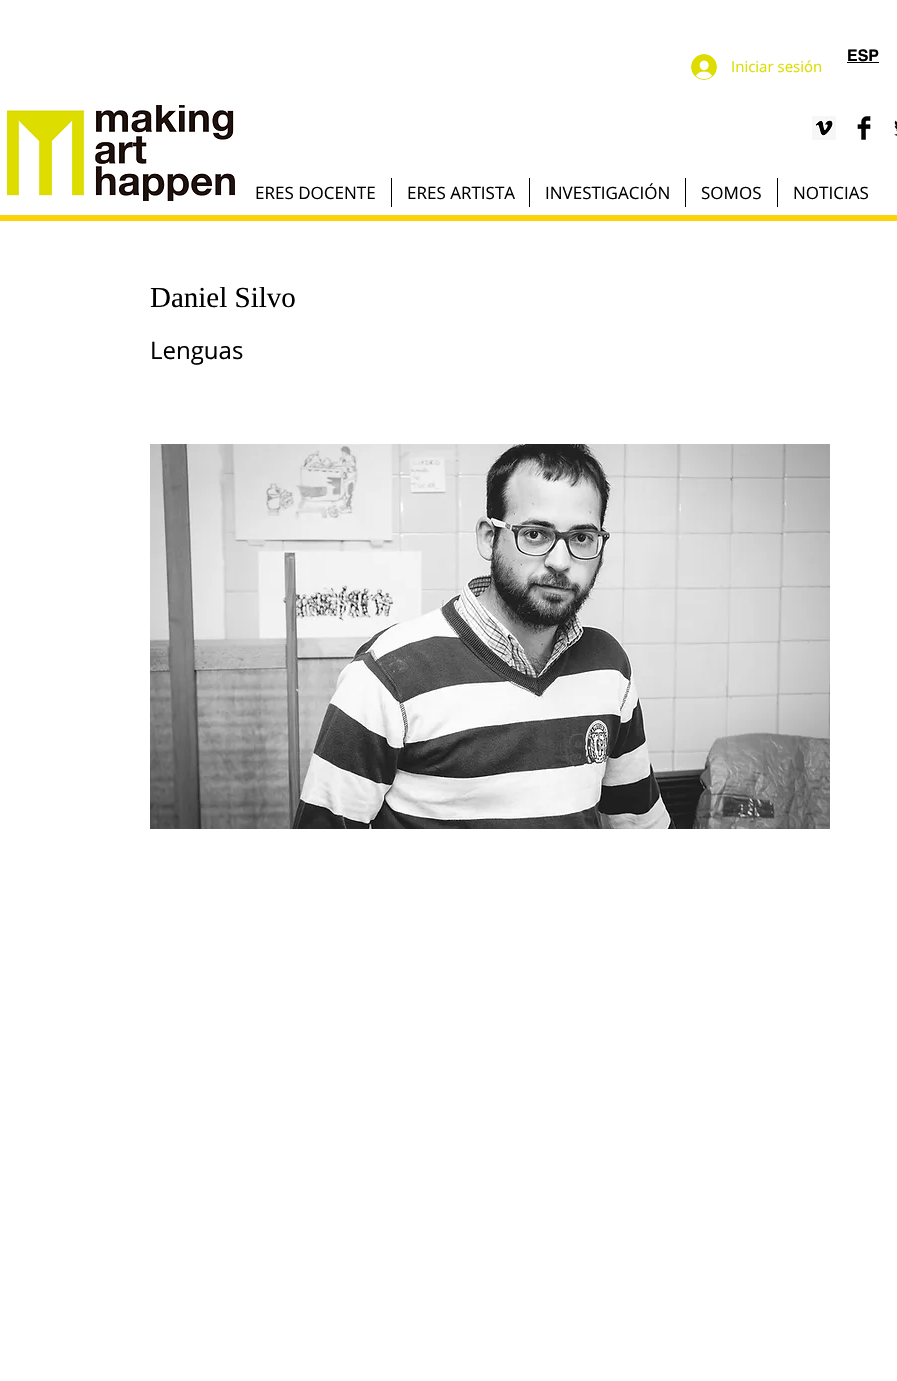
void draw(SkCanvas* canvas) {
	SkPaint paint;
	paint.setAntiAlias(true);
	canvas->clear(0xffffffff);
	SkFont f1(fontMgr->matchFamilyStyle("helvetica", SkFontStyle::Bold()), 16);
	f1.setSubpixel(true);
	paint.setColor(0xff000000);
	canvas->drawString("ESP", 847, 61, f1, paint);
	canvas->drawRect(SkRect::MakeXYWH(847, 62, 32, 1), paint);
	canvas->drawImageRect(SkImages::DeferredFromEncodedData(SkData::MakeFromFileName("img1.png")), SkRect::MakeXYWH(691, 54, 26, 26), SkSamplingOptions());
	SkFont f2(fontMgr->matchFamilyStyle("Open Sans", SkFontStyle::Normal()), 15);
	f2.setSubpixel(true);
	paint.setColor(0xffdddd01);
	canvas->drawString("Iniciar sesión", 731, 72, f2, paint);
	canvas->drawImageRect(SkImages::DeferredFromEncodedData(SkData::MakeFromFileName("img2.png")), SkRect::MakeXYWH(7, 105, 228, 96), SkSamplingOptions());
	canvas->drawImageRect(SkImages::DeferredFromEncodedData(SkData::MakeFromFileName("img3.png")), SkRect::MakeXYWH(812, 116, 24, 24), SkSamplingOptions());
	canvas->drawImageRect(SkImages::DeferredFromEncodedData(SkData::MakeFromFileName("img4.png")), SkRect::MakeXYWH(857, 116, 14, 24), SkSamplingOptions());
	canvas->drawImageRect(SkImages::DeferredFromEncodedData(SkData::MakeFromFileName("img5.png")), SkRect::MakeXYWH(894, 120, 3, 16), SkSamplingOptions());
	SkFont f3(fontMgr->matchFamilyStyle("Open Sans", SkFontStyle::Normal()), 17);
	f3.setSubpixel(true);
	paint.setColor(0xff000000);
	canvas->drawString("ERES DOCENTE", 255, 199, f3, paint);
	canvas->drawRect(SkRect::MakeXYWH(391, 178, 1, 29), paint);
	canvas->drawString("ERES ARTISTA", 407, 199, f3, paint);
	canvas->drawRect(SkRect::MakeXYWH(529, 178, 1, 29), paint);
	canvas->drawString("INVESTIGACIÓN", 545, 199, f3, paint);
	canvas->drawRect(SkRect::MakeXYWH(685, 178, 1, 29), paint);
	canvas->drawString("SOMOS", 701, 199, f3, paint);
	canvas->drawRect(SkRect::MakeXYWH(777, 178, 1, 29), paint);
	canvas->drawString("NOTICIAS", 793, 199, f3, paint);
	paint.setColor(0xfffcd307);
	canvas->drawRect(SkRect::MakeXYWH(0, 215, 897, 6), paint);
	SkFont f4(fontMgr->matchFamilyStyle("Liberation Serif", SkFontStyle::Normal()), 29);
	f4.setSubpixel(true);
	paint.setColor(0xff000000);
	canvas->drawString("Daniel Silvo", 150, 307, f4, paint);
	SkFont f5(fontMgr->matchFamilyStyle("Open Sans", SkFontStyle::Normal()), 24);
	f5.setSubpixel(true);
	canvas->drawString("Lenguas", 150, 359, f5, paint);
	canvas->drawImageRect(SkImages::DeferredFromEncodedData(SkData::MakeFromFileName("img6.png")), SkRect::MakeXYWH(150, 444, 680, 385), SkSamplingOptions());
}
